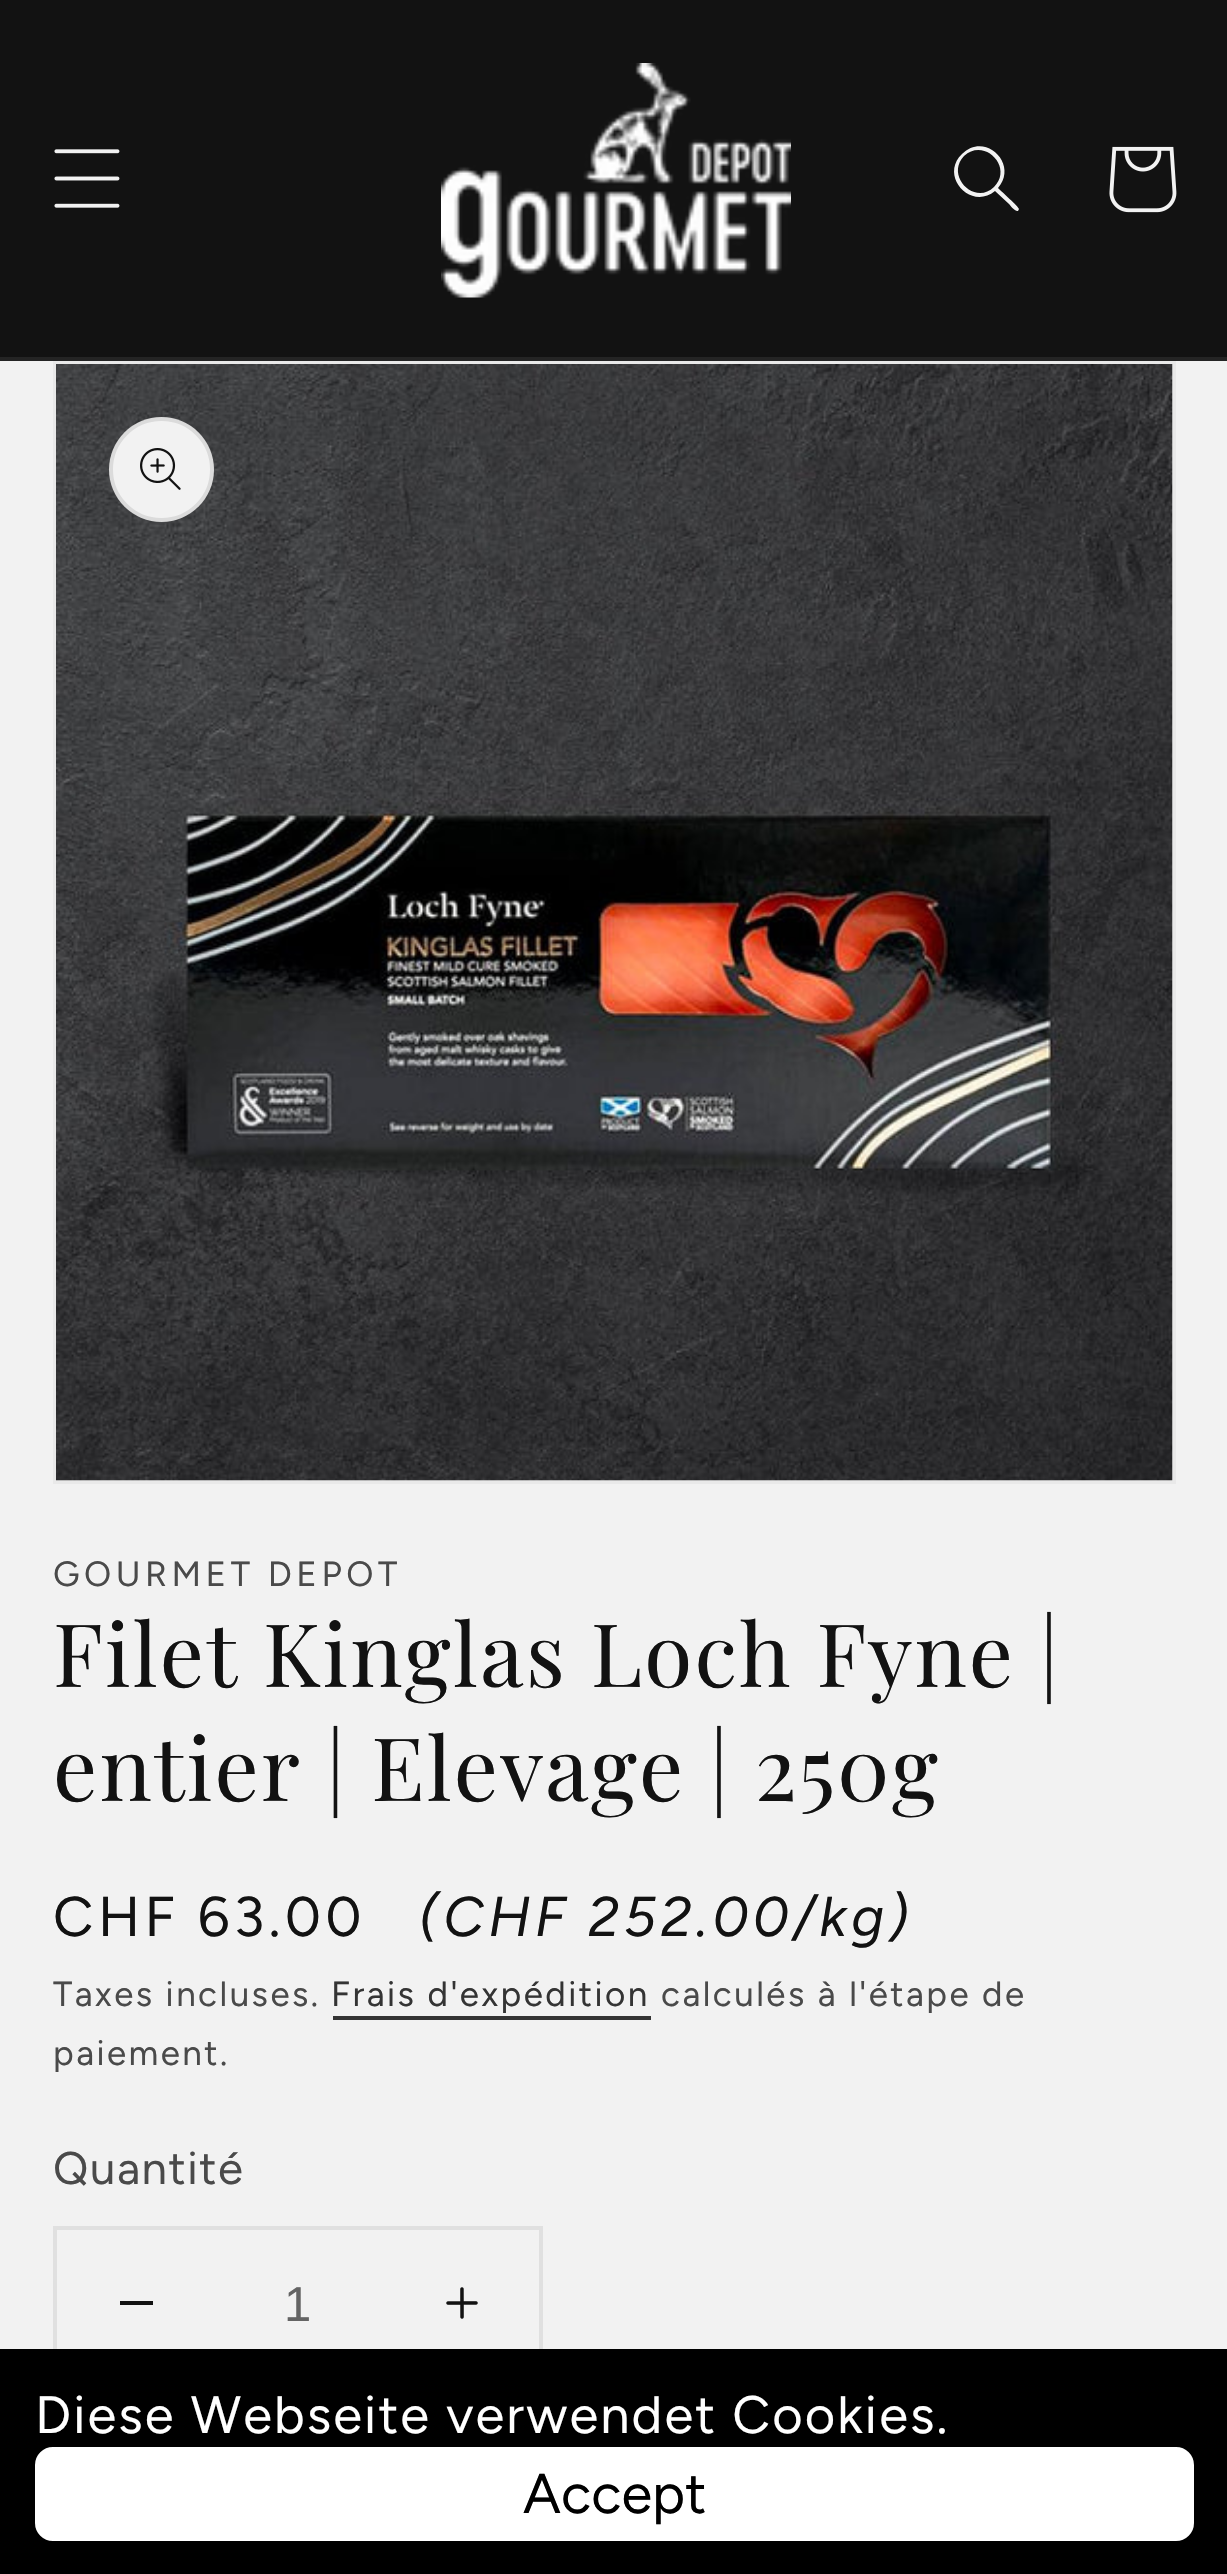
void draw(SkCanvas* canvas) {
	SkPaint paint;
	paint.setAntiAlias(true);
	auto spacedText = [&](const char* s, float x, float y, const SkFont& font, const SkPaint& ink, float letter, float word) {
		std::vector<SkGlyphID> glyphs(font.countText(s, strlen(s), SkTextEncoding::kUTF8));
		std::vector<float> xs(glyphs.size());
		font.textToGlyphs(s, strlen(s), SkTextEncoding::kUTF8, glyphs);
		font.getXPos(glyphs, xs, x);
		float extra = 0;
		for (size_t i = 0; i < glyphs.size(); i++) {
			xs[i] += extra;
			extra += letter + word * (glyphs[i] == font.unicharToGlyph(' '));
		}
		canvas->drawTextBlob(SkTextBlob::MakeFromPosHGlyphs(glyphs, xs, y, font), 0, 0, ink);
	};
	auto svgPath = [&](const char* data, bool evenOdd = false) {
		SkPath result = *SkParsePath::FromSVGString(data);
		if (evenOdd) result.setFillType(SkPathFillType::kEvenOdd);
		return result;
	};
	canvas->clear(0xfff2f2f2);
	paint.setColor(0xff121212);
	canvas->drawRect(SkRect::MakeXYWH(0, 0, 1227, 357), paint);
	paint.setColor(0xff242424);
	canvas->drawRect(SkRect::MakeXYWH(0, 357, 1227, 4), paint);
	canvas->drawImageRect(SkImages::DeferredFromEncodedData(SkData::MakeFromFileName("img1.png")), SkRect::MakeXYWH(54, 149, 66, 59), SkSamplingOptions());
	canvas->drawImageRect(SkImages::DeferredFromEncodedData(SkData::MakeFromFileName("img2.png")), SkRect::MakeXYWH(441, 63, 350, 235), SkSamplingOptions());
	paint.setColor(0xfff2f2f2);
	canvas->drawPath(svgPath("M994 187C975 206 945 176 964 156C984 137 1014 167 994 187ZM995 191C971 211 939 176 962 154C985 131 1019 164 998 188C1001 191 1019 207 1019 209L1018 211C1015 212 1010 205 1009 204Z", true), paint);
	canvas->drawImageRect(SkImages::DeferredFromEncodedData(SkData::MakeFromFileName("img3.png")), SkRect::MakeXYWH(1109, 146, 68, 67), SkSamplingOptions());
	paint.setStroke(true);
	paint.setStrokeWidth(4);
	paint.setColor(0xffe9e9e9);
	canvas->drawRect(SkRect::MakeXYWH(55, 363, 1119, 1119), paint);
	canvas->drawImageRect(SkImages::DeferredFromEncodedData(SkData::MakeFromFileName("img4.png")), SkRect::MakeXYWH(56, 364, 1117, 1117), SkSamplingOptions());
	paint.setStroke(false);
	paint.setColor(0xfff2f2f2);
	canvas->drawCircle(161.5, 469.5, 52.5, paint);
	paint.setStroke(true);
	paint.setColor(0x1a121212);
	canvas->drawCircle(161.5, 469.5, 50.5, paint);
	canvas->drawImageRect(SkImages::DeferredFromEncodedData(SkData::MakeFromFileName("img5.png")), SkRect::MakeXYWH(140, 448, 41, 42), SkSamplingOptions());
	SkFont f1(fontMgr->matchFamilyStyle("Figtree", SkFontStyle::Normal()), 35);
	f1.setSubpixel(true);
	paint.setStroke(false);
	paint.setColor(0xff4a4a4a);
	spacedText("GOURMET DEPOT", 53, 1586, f1, paint, 4.5, 0);
	SkFont f2(fontMgr->matchFamilyStyle("Playfair Display", SkFontStyle::Normal()), 87.5);
	f2.setSubpixel(true);
	paint.setColor(0xff121212);
	spacedText("Filet Kinglas Loch Fyne |", 53, 1687, f2, paint, 2.1, 0);
	spacedText("entier | Elevage | 250g", 53, 1801, f2, paint, 2.1, 0);
	SkFont f3(fontMgr->matchFamilyStyle("Figtree", SkFontStyle::Normal()), 56);
	f3.setSubpixel(true);
	spacedText("CHF 63.00", 53, 1936, f3, paint, 4.5, 0);
	SkFont f4(fontMgr->matchFamilyStyle("Figtree", SkFontStyle::Italic()), 56);
	f4.setSubpixel(true);
	spacedText("(CHF 252.00/kg)", 419, 1936, f4, paint, 4.5, 0);
	paint.setColor(0xff4a4a4a);
	spacedText("Taxes incluses.", 53, 2006, f1, paint, 2.45, 0);
	paint.setColor(0xff343434);
	spacedText("Frais d'expédition", 331, 2006, f1, paint, 2.45, 0);
	canvas->drawRect(SkRect::MakeXYWH(333, 2016, 318, 4), paint);
	paint.setColor(0xff4a4a4a);
	spacedText("calculés à l'étape de", 661, 2006, f1, paint, 2.45, 0);
	spacedText("paiement.", 53, 2065, f1, paint, 2.45, 0);
	SkFont f5(fontMgr->matchFamilyStyle("Figtree", SkFontStyle::Normal()), 45.5);
	f5.setSubpixel(true);
	spacedText("Quantité", 53, 2184, f5, paint, 1.5, 0);
	paint.setStroke(true);
	paint.setColor(0xffe0e0e0);
	canvas->drawRect(SkRect::MakeXYWH(55, 2228, 486, 154), paint);
	paint.setStroke(false);
	paint.setColor(0xff121212);
	canvas->drawRect(SkRect::MakeXYWH(120, 2301, 33, 4), paint);
	SkFont f6(fontMgr->matchFamilyStyle("Liberation Sans", SkFontStyle::Normal()), 49);
	f6.setSubpixel(true);
	paint.setColor(0xff646464);
	canvas->drawString("1", 284, 2321, f6, paint);
	canvas->drawImageRect(SkImages::DeferredFromEncodedData(SkData::MakeFromFileName("img6.png")), SkRect::MakeXYWH(446, 2287, 32, 32), SkSamplingOptions());
	paint.setColor(0xff000000);
	canvas->drawRect(SkRect::MakeXYWH(0, 2349, 1227, 225), paint);
	SkFont f7(fontMgr->matchFamilyStyle("Figtree", SkFontStyle::Normal()), 52.5);
	f7.setSubpixel(true);
	paint.setColor(0xffffffff);
	spacedText("Diese Webseite verwendet Cookies.", 35, 2433, f7, paint, 2.1, 0);
	canvas->drawRoundRect(SkRect::MakeXYWH(38.5, 2450.5, 1152, 87), 14.5, 14.5, paint);
	paint.setStroke(true);
	paint.setStrokeWidth(7);
	canvas->drawRoundRect(SkRect::MakeXYWH(38.5, 2450.5, 1152, 87), 14.5, 14.5, paint);
	paint.setStroke(false);
	paint.setColor(0xff000000);
	canvas->drawString("Accept", 523, 2513, f3, paint);
}
